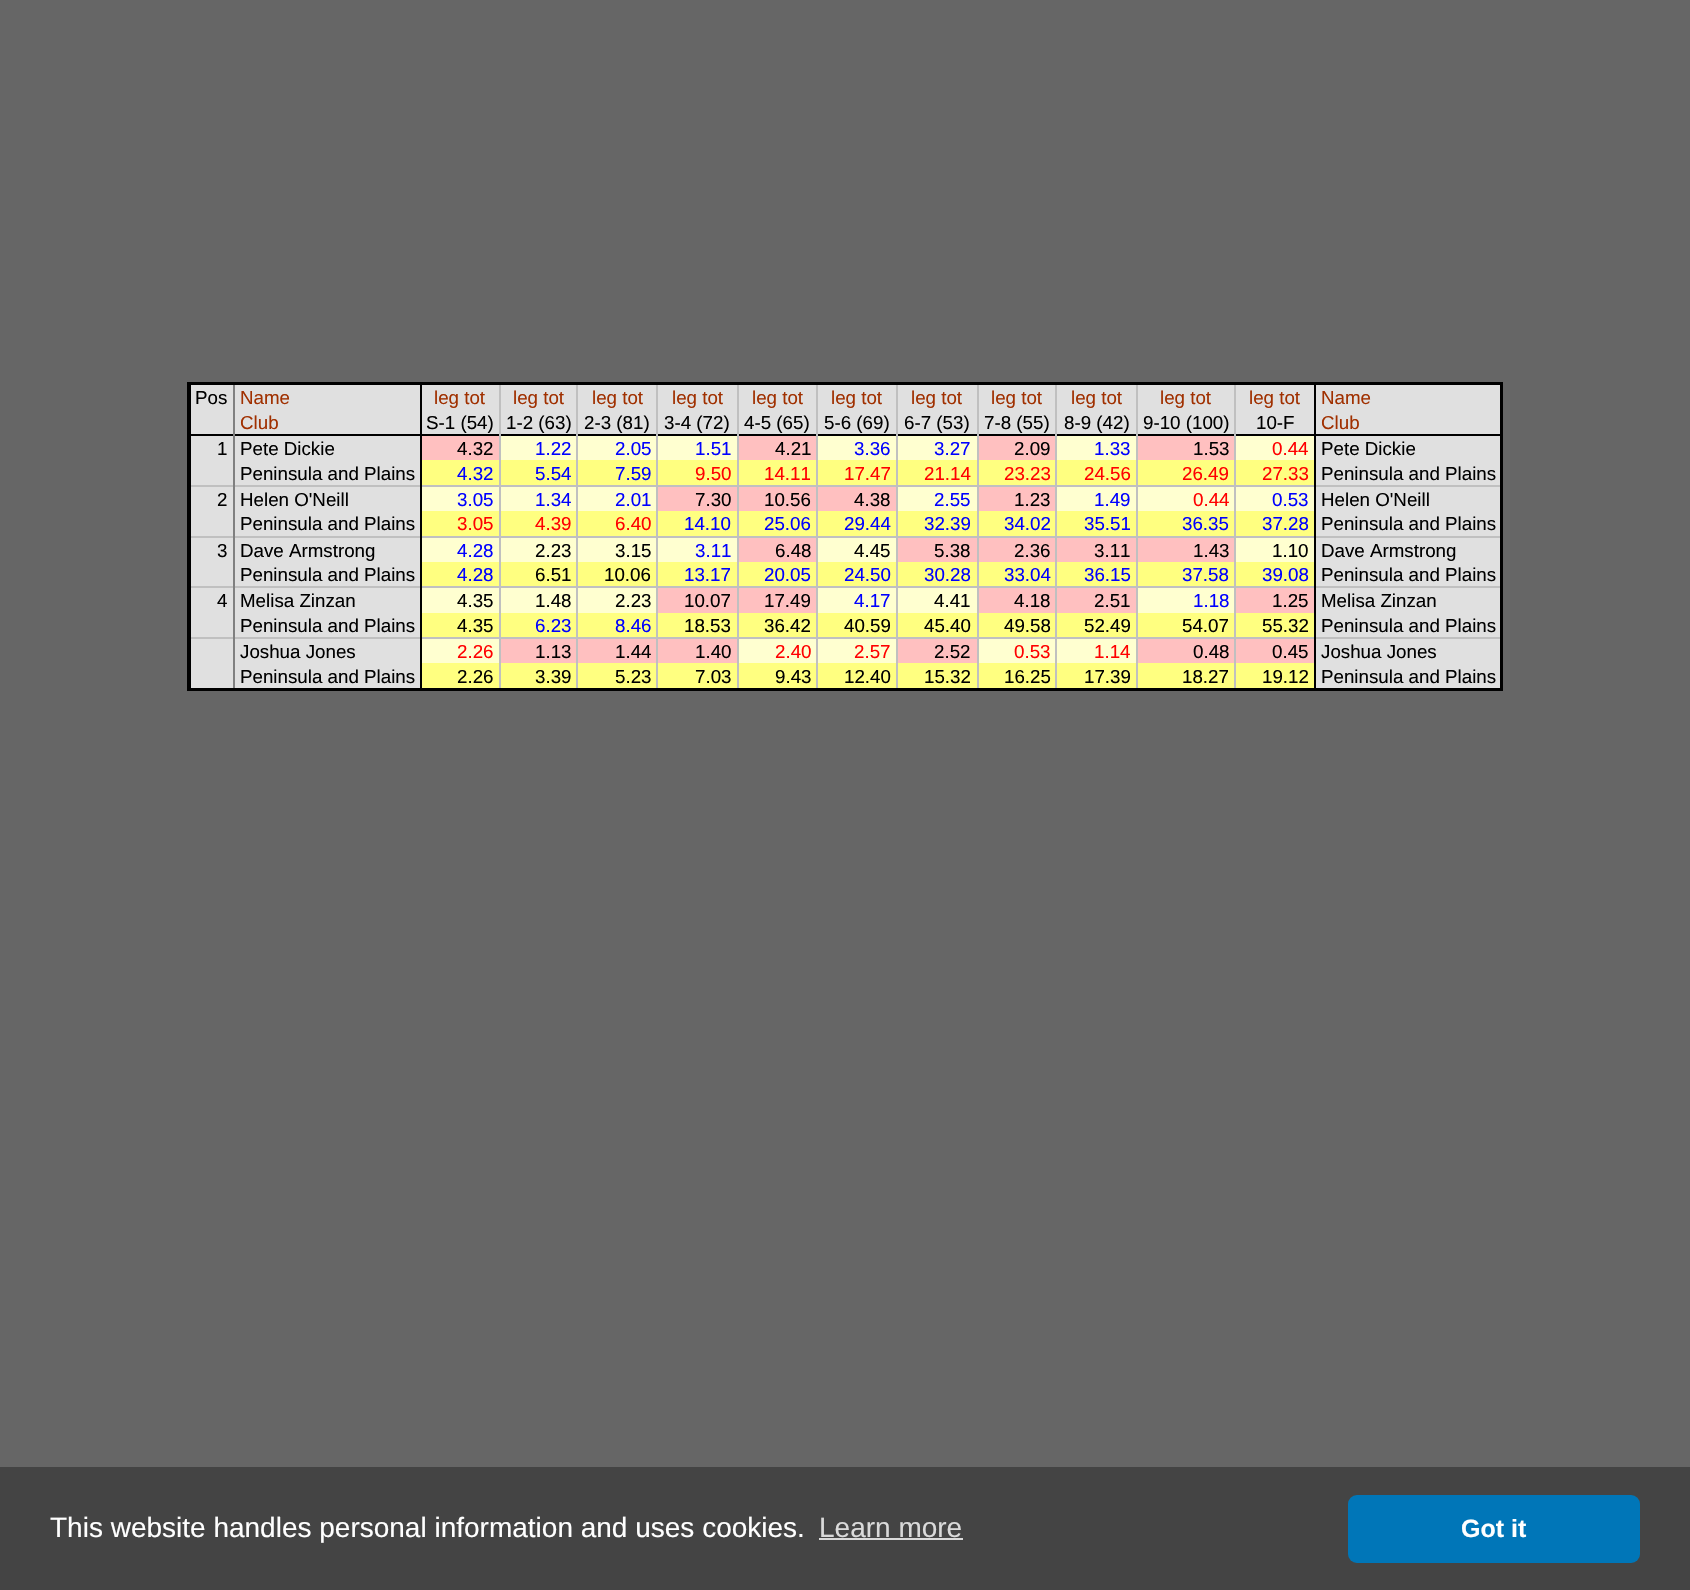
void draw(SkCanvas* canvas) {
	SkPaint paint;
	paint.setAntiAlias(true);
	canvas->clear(0xff666666);
	paint.setStroke(true);
	paint.setStrokeWidth(4);
	paint.setColor(0xff000000);
	canvas->drawRect(SkRect::MakeXYWH(189, 384, 1312, 305), paint);
	paint.setStroke(false);
	paint.setColor(0xffe0e0e0);
	canvas->drawRect(SkRect::MakeXYWH(191, 385, 42, 49), paint);
	SkFont f1(fontMgr->matchFamilyStyle("Liberation Sans", SkFontStyle::Normal()), 18.75);
	f1.setSubpixel(true);
	paint.setColor(0xff000000);
	canvas->drawString("Pos", 195, 404, f1, paint);
	paint.setColor(0xffe0e0e0);
	canvas->drawRect(SkRect::MakeXYWH(235, 385, 185, 49), paint);
	paint.setColor(0xff808080);
	canvas->drawRect(SkRect::MakeXYWH(233, 385, 2, 49), paint);
	paint.setColor(0xffa03000);
	canvas->drawString("Name", 240, 404, f1, paint);
	paint.setColor(0xffe0e0e0);
	canvas->drawRect(SkRect::MakeXYWH(422, 385, 77, 49), paint);
	paint.setColor(0xff000000);
	canvas->drawRect(SkRect::MakeXYWH(420, 385, 2, 49), paint);
	paint.setColor(0xffa03000);
	canvas->drawString("leg tot", 434, 404, f1, paint);
	paint.setColor(0xffe0e0e0);
	canvas->drawRect(SkRect::MakeXYWH(501, 385, 75, 49), paint);
	paint.setColor(0xffc0c0c0);
	canvas->drawRect(SkRect::MakeXYWH(499, 385, 2, 49), paint);
	paint.setColor(0xffa03000);
	canvas->drawString("leg tot", 513, 404, f1, paint);
	paint.setColor(0xffe0e0e0);
	canvas->drawRect(SkRect::MakeXYWH(578, 385, 78, 49), paint);
	paint.setColor(0xffc0c0c0);
	canvas->drawRect(SkRect::MakeXYWH(576, 385, 2, 49), paint);
	paint.setColor(0xffa03000);
	canvas->drawString("leg tot", 592, 404, f1, paint);
	paint.setColor(0xffe0e0e0);
	canvas->drawRect(SkRect::MakeXYWH(658, 385, 79, 49), paint);
	paint.setColor(0xffc0c0c0);
	canvas->drawRect(SkRect::MakeXYWH(656, 385, 2, 49), paint);
	paint.setColor(0xffa03000);
	canvas->drawString("leg tot", 672, 404, f1, paint);
	paint.setColor(0xffe0e0e0);
	canvas->drawRect(SkRect::MakeXYWH(739, 385, 77, 49), paint);
	paint.setColor(0xffc0c0c0);
	canvas->drawRect(SkRect::MakeXYWH(737, 385, 2, 49), paint);
	paint.setColor(0xffa03000);
	canvas->drawString("leg tot", 752, 404, f1, paint);
	paint.setColor(0xffe0e0e0);
	canvas->drawRect(SkRect::MakeXYWH(818, 385, 78, 49), paint);
	paint.setColor(0xffc0c0c0);
	canvas->drawRect(SkRect::MakeXYWH(816, 385, 2, 49), paint);
	paint.setColor(0xffa03000);
	canvas->drawString("leg tot", 831, 404, f1, paint);
	paint.setColor(0xffe0e0e0);
	canvas->drawRect(SkRect::MakeXYWH(898, 385, 79, 49), paint);
	paint.setColor(0xffc0c0c0);
	canvas->drawRect(SkRect::MakeXYWH(896, 385, 2, 49), paint);
	paint.setColor(0xffa03000);
	canvas->drawString("leg tot", 911, 404, f1, paint);
	paint.setColor(0xffe0e0e0);
	canvas->drawRect(SkRect::MakeXYWH(979, 385, 76, 49), paint);
	paint.setColor(0xffc0c0c0);
	canvas->drawRect(SkRect::MakeXYWH(977, 385, 2, 49), paint);
	paint.setColor(0xffa03000);
	canvas->drawString("leg tot", 991, 404, f1, paint);
	paint.setColor(0xffe0e0e0);
	canvas->drawRect(SkRect::MakeXYWH(1057, 385, 79, 49), paint);
	paint.setColor(0xffc0c0c0);
	canvas->drawRect(SkRect::MakeXYWH(1055, 385, 2, 49), paint);
	paint.setColor(0xffa03000);
	canvas->drawString("leg tot", 1071, 404, f1, paint);
	paint.setColor(0xffe0e0e0);
	canvas->drawRect(SkRect::MakeXYWH(1138, 385, 96, 49), paint);
	paint.setColor(0xffc0c0c0);
	canvas->drawRect(SkRect::MakeXYWH(1136, 385, 2, 49), paint);
	paint.setColor(0xffa03000);
	canvas->drawString("leg tot", 1160, 404, f1, paint);
	paint.setColor(0xffe0e0e0);
	canvas->drawRect(SkRect::MakeXYWH(1236, 385, 78, 49), paint);
	paint.setColor(0xffc0c0c0);
	canvas->drawRect(SkRect::MakeXYWH(1234, 385, 2, 49), paint);
	paint.setColor(0xffa03000);
	canvas->drawString("leg tot", 1249, 404, f1, paint);
	paint.setColor(0xffe0e0e0);
	canvas->drawRect(SkRect::MakeXYWH(1316, 385, 184, 49), paint);
	paint.setColor(0xff000000);
	canvas->drawRect(SkRect::MakeXYWH(1314, 385, 2, 49), paint);
	paint.setColor(0xffa03000);
	canvas->drawString("Name", 1321, 404, f1, paint);
	canvas->drawString("Club", 240, 429, f1, paint);
	paint.setColor(0xff000000);
	canvas->drawString("S-1 (54)", 426, 429, f1, paint);
	canvas->drawString("1-2 (63)", 506, 429, f1, paint);
	canvas->drawString("2-3 (81)", 584, 429, f1, paint);
	canvas->drawString("3-4 (72)", 664, 429, f1, paint);
	canvas->drawString("4-5 (65)", 744, 429, f1, paint);
	canvas->drawString("5-6 (69)", 824, 429, f1, paint);
	canvas->drawString("6-7 (53)", 904, 429, f1, paint);
	canvas->drawString("7-8 (55)", 984, 429, f1, paint);
	canvas->drawString("8-9 (42)", 1064, 429, f1, paint);
	canvas->drawString("9-10 (100)", 1143, 429, f1, paint);
	canvas->drawString("10-F", 1256, 429, f1, paint);
	paint.setColor(0xffa03000);
	canvas->drawString("Club", 1321, 429, f1, paint);
	paint.setColor(0xffe0e0e0);
	canvas->drawRect(SkRect::MakeXYWH(191, 436, 42, 49), paint);
	paint.setColor(0xff000000);
	canvas->drawRect(SkRect::MakeXYWH(191, 434, 1309, 2), paint);
	canvas->drawString("1", 217, 455, f1, paint);
	paint.setColor(0xffe0e0e0);
	canvas->drawRect(SkRect::MakeXYWH(235, 436, 185, 49), paint);
	paint.setColor(0xff808080);
	canvas->drawRect(SkRect::MakeXYWH(233, 434, 2, 51), paint);
	paint.setColor(0xff000000);
	canvas->drawString("Pete Dickie", 240, 455, f1, paint);
	paint.setColor(0xffffc0c0);
	canvas->drawRect(SkRect::MakeXYWH(422, 436, 77, 24), paint);
	paint.setColor(0xff000000);
	canvas->drawRect(SkRect::MakeXYWH(420, 434, 2, 51), paint);
	canvas->drawString("4.32", 457, 455, f1, paint);
	paint.setColor(0xffffffd0);
	canvas->drawRect(SkRect::MakeXYWH(501, 436, 75, 24), paint);
	paint.setColor(0xffc0c0c0);
	canvas->drawRect(SkRect::MakeXYWH(499, 434, 2, 51), paint);
	paint.setColor(0xff0000ff);
	canvas->drawString("1.22", 535, 455, f1, paint);
	paint.setColor(0xffffffd0);
	canvas->drawRect(SkRect::MakeXYWH(578, 436, 78, 24), paint);
	paint.setColor(0xffc0c0c0);
	canvas->drawRect(SkRect::MakeXYWH(576, 434, 2, 51), paint);
	paint.setColor(0xff0000ff);
	canvas->drawString("2.05", 615, 455, f1, paint);
	paint.setColor(0xffffffd0);
	canvas->drawRect(SkRect::MakeXYWH(658, 436, 79, 24), paint);
	paint.setColor(0xffc0c0c0);
	canvas->drawRect(SkRect::MakeXYWH(656, 434, 2, 51), paint);
	paint.setColor(0xff0000ff);
	canvas->drawString("1.51", 695, 455, f1, paint);
	paint.setColor(0xffffc0c0);
	canvas->drawRect(SkRect::MakeXYWH(739, 436, 77, 24), paint);
	paint.setColor(0xffc0c0c0);
	canvas->drawRect(SkRect::MakeXYWH(737, 434, 2, 51), paint);
	paint.setColor(0xff000000);
	canvas->drawString("4.21", 775, 455, f1, paint);
	paint.setColor(0xffffffd0);
	canvas->drawRect(SkRect::MakeXYWH(818, 436, 78, 24), paint);
	paint.setColor(0xffc0c0c0);
	canvas->drawRect(SkRect::MakeXYWH(816, 434, 2, 51), paint);
	paint.setColor(0xff0000ff);
	canvas->drawString("3.36", 854, 455, f1, paint);
	paint.setColor(0xffffffd0);
	canvas->drawRect(SkRect::MakeXYWH(898, 436, 79, 24), paint);
	paint.setColor(0xffc0c0c0);
	canvas->drawRect(SkRect::MakeXYWH(896, 434, 2, 51), paint);
	paint.setColor(0xff0000ff);
	canvas->drawString("3.27", 934, 455, f1, paint);
	paint.setColor(0xffffc0c0);
	canvas->drawRect(SkRect::MakeXYWH(979, 436, 76, 24), paint);
	paint.setColor(0xffc0c0c0);
	canvas->drawRect(SkRect::MakeXYWH(977, 434, 2, 51), paint);
	paint.setColor(0xff000000);
	canvas->drawString("2.09", 1014, 455, f1, paint);
	paint.setColor(0xffffffd0);
	canvas->drawRect(SkRect::MakeXYWH(1057, 436, 79, 24), paint);
	paint.setColor(0xffc0c0c0);
	canvas->drawRect(SkRect::MakeXYWH(1055, 434, 2, 51), paint);
	paint.setColor(0xff0000ff);
	canvas->drawString("1.33", 1094, 455, f1, paint);
	paint.setColor(0xffffc0c0);
	canvas->drawRect(SkRect::MakeXYWH(1138, 436, 96, 24), paint);
	paint.setColor(0xffc0c0c0);
	canvas->drawRect(SkRect::MakeXYWH(1136, 434, 2, 51), paint);
	paint.setColor(0xff000000);
	canvas->drawString("1.53", 1193, 455, f1, paint);
	paint.setColor(0xffffffd0);
	canvas->drawRect(SkRect::MakeXYWH(1236, 436, 78, 24), paint);
	paint.setColor(0xffc0c0c0);
	canvas->drawRect(SkRect::MakeXYWH(1234, 434, 2, 51), paint);
	paint.setColor(0xffff0000);
	canvas->drawString("0.44", 1272, 455, f1, paint);
	paint.setColor(0xffe0e0e0);
	canvas->drawRect(SkRect::MakeXYWH(1316, 436, 184, 49), paint);
	paint.setColor(0xff000000);
	canvas->drawRect(SkRect::MakeXYWH(1314, 434, 2, 51), paint);
	canvas->drawString("Pete Dickie", 1321, 455, f1, paint);
	canvas->drawString("Peninsula and Plains", 240, 480, f1, paint);
	paint.setColor(0xffffff80);
	canvas->drawRect(SkRect::MakeXYWH(422, 460, 77, 25), paint);
	paint.setColor(0xff0000ff);
	canvas->drawString("4.32", 457, 480, f1, paint);
	paint.setColor(0xffffff80);
	canvas->drawRect(SkRect::MakeXYWH(501, 460, 75, 25), paint);
	paint.setColor(0xff0000ff);
	canvas->drawString("5.54", 535, 480, f1, paint);
	paint.setColor(0xffffff80);
	canvas->drawRect(SkRect::MakeXYWH(578, 460, 78, 25), paint);
	paint.setColor(0xff0000ff);
	canvas->drawString("7.59", 615, 480, f1, paint);
	paint.setColor(0xffffff80);
	canvas->drawRect(SkRect::MakeXYWH(658, 460, 79, 25), paint);
	paint.setColor(0xffff0000);
	canvas->drawString("9.50", 695, 480, f1, paint);
	paint.setColor(0xffffff80);
	canvas->drawRect(SkRect::MakeXYWH(739, 460, 77, 25), paint);
	paint.setColor(0xffff0000);
	canvas->drawString("14.11", 764, 480, f1, paint);
	paint.setColor(0xffffff80);
	canvas->drawRect(SkRect::MakeXYWH(818, 460, 78, 25), paint);
	paint.setColor(0xffff0000);
	canvas->drawString("17.47", 844, 480, f1, paint);
	paint.setColor(0xffffff80);
	canvas->drawRect(SkRect::MakeXYWH(898, 460, 79, 25), paint);
	paint.setColor(0xffff0000);
	canvas->drawString("21.14", 924, 480, f1, paint);
	paint.setColor(0xffffff80);
	canvas->drawRect(SkRect::MakeXYWH(979, 460, 76, 25), paint);
	paint.setColor(0xffff0000);
	canvas->drawString("23.23", 1004, 480, f1, paint);
	paint.setColor(0xffffff80);
	canvas->drawRect(SkRect::MakeXYWH(1057, 460, 79, 25), paint);
	paint.setColor(0xffff0000);
	canvas->drawString("24.56", 1084, 480, f1, paint);
	paint.setColor(0xffffff80);
	canvas->drawRect(SkRect::MakeXYWH(1138, 460, 96, 25), paint);
	paint.setColor(0xffff0000);
	canvas->drawString("26.49", 1182, 480, f1, paint);
	paint.setColor(0xffffff80);
	canvas->drawRect(SkRect::MakeXYWH(1236, 460, 78, 25), paint);
	paint.setColor(0xffff0000);
	canvas->drawString("27.33", 1262, 480, f1, paint);
	paint.setColor(0xff000000);
	canvas->drawString("Peninsula and Plains", 1321, 480, f1, paint);
	paint.setColor(0xffe0e0e0);
	canvas->drawRect(SkRect::MakeXYWH(191, 487, 42, 49), paint);
	paint.setColor(0xffc0c0c0);
	canvas->drawRect(SkRect::MakeXYWH(191, 485, 1309, 2), paint);
	paint.setColor(0xff000000);
	canvas->drawString("2", 217, 506, f1, paint);
	paint.setColor(0xffe0e0e0);
	canvas->drawRect(SkRect::MakeXYWH(235, 487, 185, 49), paint);
	paint.setColor(0xff808080);
	canvas->drawRect(SkRect::MakeXYWH(233, 485, 2, 51), paint);
	paint.setColor(0xff000000);
	canvas->drawString("Helen O'Neill", 240, 506, f1, paint);
	paint.setColor(0xffffffd0);
	canvas->drawRect(SkRect::MakeXYWH(422, 487, 77, 24), paint);
	paint.setColor(0xff000000);
	canvas->drawRect(SkRect::MakeXYWH(420, 485, 2, 51), paint);
	paint.setColor(0xff0000ff);
	canvas->drawString("3.05", 457, 506, f1, paint);
	paint.setColor(0xffffffd0);
	canvas->drawRect(SkRect::MakeXYWH(501, 487, 75, 24), paint);
	paint.setColor(0xffc0c0c0);
	canvas->drawRect(SkRect::MakeXYWH(499, 485, 2, 51), paint);
	paint.setColor(0xff0000ff);
	canvas->drawString("1.34", 535, 506, f1, paint);
	paint.setColor(0xffffffd0);
	canvas->drawRect(SkRect::MakeXYWH(578, 487, 78, 24), paint);
	paint.setColor(0xffc0c0c0);
	canvas->drawRect(SkRect::MakeXYWH(576, 485, 2, 51), paint);
	paint.setColor(0xff0000ff);
	canvas->drawString("2.01", 615, 506, f1, paint);
	paint.setColor(0xffffc0c0);
	canvas->drawRect(SkRect::MakeXYWH(658, 487, 79, 24), paint);
	paint.setColor(0xffc0c0c0);
	canvas->drawRect(SkRect::MakeXYWH(656, 485, 2, 51), paint);
	paint.setColor(0xff000000);
	canvas->drawString("7.30", 695, 506, f1, paint);
	paint.setColor(0xffffc0c0);
	canvas->drawRect(SkRect::MakeXYWH(739, 487, 77, 24), paint);
	paint.setColor(0xffc0c0c0);
	canvas->drawRect(SkRect::MakeXYWH(737, 485, 2, 51), paint);
	paint.setColor(0xff000000);
	canvas->drawString("10.56", 764, 506, f1, paint);
	paint.setColor(0xffffc0c0);
	canvas->drawRect(SkRect::MakeXYWH(818, 487, 78, 24), paint);
	paint.setColor(0xffc0c0c0);
	canvas->drawRect(SkRect::MakeXYWH(816, 485, 2, 51), paint);
	paint.setColor(0xff000000);
	canvas->drawString("4.38", 854, 506, f1, paint);
	paint.setColor(0xffffffd0);
	canvas->drawRect(SkRect::MakeXYWH(898, 487, 79, 24), paint);
	paint.setColor(0xffc0c0c0);
	canvas->drawRect(SkRect::MakeXYWH(896, 485, 2, 51), paint);
	paint.setColor(0xff0000ff);
	canvas->drawString("2.55", 934, 506, f1, paint);
	paint.setColor(0xffffc0c0);
	canvas->drawRect(SkRect::MakeXYWH(979, 487, 76, 24), paint);
	paint.setColor(0xffc0c0c0);
	canvas->drawRect(SkRect::MakeXYWH(977, 485, 2, 51), paint);
	paint.setColor(0xff000000);
	canvas->drawString("1.23", 1014, 506, f1, paint);
	paint.setColor(0xffffffd0);
	canvas->drawRect(SkRect::MakeXYWH(1057, 487, 79, 24), paint);
	paint.setColor(0xffc0c0c0);
	canvas->drawRect(SkRect::MakeXYWH(1055, 485, 2, 51), paint);
	paint.setColor(0xff0000ff);
	canvas->drawString("1.49", 1094, 506, f1, paint);
	paint.setColor(0xffffffd0);
	canvas->drawRect(SkRect::MakeXYWH(1138, 487, 96, 24), paint);
	paint.setColor(0xffc0c0c0);
	canvas->drawRect(SkRect::MakeXYWH(1136, 485, 2, 51), paint);
	paint.setColor(0xffff0000);
	canvas->drawString("0.44", 1193, 506, f1, paint);
	paint.setColor(0xffffffd0);
	canvas->drawRect(SkRect::MakeXYWH(1236, 487, 78, 24), paint);
	paint.setColor(0xffc0c0c0);
	canvas->drawRect(SkRect::MakeXYWH(1234, 485, 2, 51), paint);
	paint.setColor(0xff0000ff);
	canvas->drawString("0.53", 1272, 506, f1, paint);
	paint.setColor(0xffe0e0e0);
	canvas->drawRect(SkRect::MakeXYWH(1316, 487, 184, 49), paint);
	paint.setColor(0xff000000);
	canvas->drawRect(SkRect::MakeXYWH(1314, 485, 2, 51), paint);
	canvas->drawString("Helen O'Neill", 1321, 506, f1, paint);
	canvas->drawString("Peninsula and Plains", 240, 530, f1, paint);
	paint.setColor(0xffffff80);
	canvas->drawRect(SkRect::MakeXYWH(422, 511, 77, 25), paint);
	paint.setColor(0xffff0000);
	canvas->drawString("3.05", 457, 530, f1, paint);
	paint.setColor(0xffffff80);
	canvas->drawRect(SkRect::MakeXYWH(501, 511, 75, 25), paint);
	paint.setColor(0xffff0000);
	canvas->drawString("4.39", 535, 530, f1, paint);
	paint.setColor(0xffffff80);
	canvas->drawRect(SkRect::MakeXYWH(578, 511, 78, 25), paint);
	paint.setColor(0xffff0000);
	canvas->drawString("6.40", 615, 530, f1, paint);
	paint.setColor(0xffffff80);
	canvas->drawRect(SkRect::MakeXYWH(658, 511, 79, 25), paint);
	paint.setColor(0xff0000ff);
	canvas->drawString("14.10", 684, 530, f1, paint);
	paint.setColor(0xffffff80);
	canvas->drawRect(SkRect::MakeXYWH(739, 511, 77, 25), paint);
	paint.setColor(0xff0000ff);
	canvas->drawString("25.06", 764, 530, f1, paint);
	paint.setColor(0xffffff80);
	canvas->drawRect(SkRect::MakeXYWH(818, 511, 78, 25), paint);
	paint.setColor(0xff0000ff);
	canvas->drawString("29.44", 844, 530, f1, paint);
	paint.setColor(0xffffff80);
	canvas->drawRect(SkRect::MakeXYWH(898, 511, 79, 25), paint);
	paint.setColor(0xff0000ff);
	canvas->drawString("32.39", 924, 530, f1, paint);
	paint.setColor(0xffffff80);
	canvas->drawRect(SkRect::MakeXYWH(979, 511, 76, 25), paint);
	paint.setColor(0xff0000ff);
	canvas->drawString("34.02", 1004, 530, f1, paint);
	paint.setColor(0xffffff80);
	canvas->drawRect(SkRect::MakeXYWH(1057, 511, 79, 25), paint);
	paint.setColor(0xff0000ff);
	canvas->drawString("35.51", 1084, 530, f1, paint);
	paint.setColor(0xffffff80);
	canvas->drawRect(SkRect::MakeXYWH(1138, 511, 96, 25), paint);
	paint.setColor(0xff0000ff);
	canvas->drawString("36.35", 1182, 530, f1, paint);
	paint.setColor(0xffffff80);
	canvas->drawRect(SkRect::MakeXYWH(1236, 511, 78, 25), paint);
	paint.setColor(0xff0000ff);
	canvas->drawString("37.28", 1262, 530, f1, paint);
	paint.setColor(0xff000000);
	canvas->drawString("Peninsula and Plains", 1321, 530, f1, paint);
	paint.setColor(0xffe0e0e0);
	canvas->drawRect(SkRect::MakeXYWH(191, 538, 42, 48), paint);
	paint.setColor(0xffc0c0c0);
	canvas->drawRect(SkRect::MakeXYWH(191, 536, 1309, 2), paint);
	paint.setColor(0xff000000);
	canvas->drawString("3", 217, 557, f1, paint);
	paint.setColor(0xffe0e0e0);
	canvas->drawRect(SkRect::MakeXYWH(235, 538, 185, 48), paint);
	paint.setColor(0xff808080);
	canvas->drawRect(SkRect::MakeXYWH(233, 536, 2, 50), paint);
	paint.setColor(0xff000000);
	canvas->drawString("Dave Armstrong", 240, 557, f1, paint);
	paint.setColor(0xffffffd0);
	canvas->drawRect(SkRect::MakeXYWH(422, 538, 77, 24), paint);
	paint.setColor(0xff000000);
	canvas->drawRect(SkRect::MakeXYWH(420, 536, 2, 50), paint);
	paint.setColor(0xff0000ff);
	canvas->drawString("4.28", 457, 557, f1, paint);
	paint.setColor(0xffffffd0);
	canvas->drawRect(SkRect::MakeXYWH(501, 538, 75, 24), paint);
	paint.setColor(0xffc0c0c0);
	canvas->drawRect(SkRect::MakeXYWH(499, 536, 2, 50), paint);
	paint.setColor(0xff000000);
	canvas->drawString("2.23", 535, 557, f1, paint);
	paint.setColor(0xffffffd0);
	canvas->drawRect(SkRect::MakeXYWH(578, 538, 78, 24), paint);
	paint.setColor(0xffc0c0c0);
	canvas->drawRect(SkRect::MakeXYWH(576, 536, 2, 50), paint);
	paint.setColor(0xff000000);
	canvas->drawString("3.15", 615, 557, f1, paint);
	paint.setColor(0xffffffd0);
	canvas->drawRect(SkRect::MakeXYWH(658, 538, 79, 24), paint);
	paint.setColor(0xffc0c0c0);
	canvas->drawRect(SkRect::MakeXYWH(656, 536, 2, 50), paint);
	paint.setColor(0xff0000ff);
	canvas->drawString("3.11", 695, 557, f1, paint);
	paint.setColor(0xffffc0c0);
	canvas->drawRect(SkRect::MakeXYWH(739, 538, 77, 24), paint);
	paint.setColor(0xffc0c0c0);
	canvas->drawRect(SkRect::MakeXYWH(737, 536, 2, 50), paint);
	paint.setColor(0xff000000);
	canvas->drawString("6.48", 775, 557, f1, paint);
	paint.setColor(0xffffffd0);
	canvas->drawRect(SkRect::MakeXYWH(818, 538, 78, 24), paint);
	paint.setColor(0xffc0c0c0);
	canvas->drawRect(SkRect::MakeXYWH(816, 536, 2, 50), paint);
	paint.setColor(0xff000000);
	canvas->drawString("4.45", 854, 557, f1, paint);
	paint.setColor(0xffffc0c0);
	canvas->drawRect(SkRect::MakeXYWH(898, 538, 79, 24), paint);
	paint.setColor(0xffc0c0c0);
	canvas->drawRect(SkRect::MakeXYWH(896, 536, 2, 50), paint);
	paint.setColor(0xff000000);
	canvas->drawString("5.38", 934, 557, f1, paint);
	paint.setColor(0xffffc0c0);
	canvas->drawRect(SkRect::MakeXYWH(979, 538, 76, 24), paint);
	paint.setColor(0xffc0c0c0);
	canvas->drawRect(SkRect::MakeXYWH(977, 536, 2, 50), paint);
	paint.setColor(0xff000000);
	canvas->drawString("2.36", 1014, 557, f1, paint);
	paint.setColor(0xffffc0c0);
	canvas->drawRect(SkRect::MakeXYWH(1057, 538, 79, 24), paint);
	paint.setColor(0xffc0c0c0);
	canvas->drawRect(SkRect::MakeXYWH(1055, 536, 2, 50), paint);
	paint.setColor(0xff000000);
	canvas->drawString("3.11", 1094, 557, f1, paint);
	paint.setColor(0xffffc0c0);
	canvas->drawRect(SkRect::MakeXYWH(1138, 538, 96, 24), paint);
	paint.setColor(0xffc0c0c0);
	canvas->drawRect(SkRect::MakeXYWH(1136, 536, 2, 50), paint);
	paint.setColor(0xff000000);
	canvas->drawString("1.43", 1193, 557, f1, paint);
	paint.setColor(0xffffffd0);
	canvas->drawRect(SkRect::MakeXYWH(1236, 538, 78, 24), paint);
	paint.setColor(0xffc0c0c0);
	canvas->drawRect(SkRect::MakeXYWH(1234, 536, 2, 50), paint);
	paint.setColor(0xff000000);
	canvas->drawString("1.10", 1272, 557, f1, paint);
	paint.setColor(0xffe0e0e0);
	canvas->drawRect(SkRect::MakeXYWH(1316, 538, 184, 48), paint);
	paint.setColor(0xff000000);
	canvas->drawRect(SkRect::MakeXYWH(1314, 536, 2, 50), paint);
	canvas->drawString("Dave Armstrong", 1321, 557, f1, paint);
	canvas->drawString("Peninsula and Plains", 240, 581, f1, paint);
	paint.setColor(0xffffff80);
	canvas->drawRect(SkRect::MakeXYWH(422, 562, 77, 24), paint);
	paint.setColor(0xff0000ff);
	canvas->drawString("4.28", 457, 581, f1, paint);
	paint.setColor(0xffffff80);
	canvas->drawRect(SkRect::MakeXYWH(501, 562, 75, 24), paint);
	paint.setColor(0xff000000);
	canvas->drawString("6.51", 535, 581, f1, paint);
	paint.setColor(0xffffff80);
	canvas->drawRect(SkRect::MakeXYWH(578, 562, 78, 24), paint);
	paint.setColor(0xff000000);
	canvas->drawString("10.06", 604, 581, f1, paint);
	paint.setColor(0xffffff80);
	canvas->drawRect(SkRect::MakeXYWH(658, 562, 79, 24), paint);
	paint.setColor(0xff0000ff);
	canvas->drawString("13.17", 684, 581, f1, paint);
	paint.setColor(0xffffff80);
	canvas->drawRect(SkRect::MakeXYWH(739, 562, 77, 24), paint);
	paint.setColor(0xff0000ff);
	canvas->drawString("20.05", 764, 581, f1, paint);
	paint.setColor(0xffffff80);
	canvas->drawRect(SkRect::MakeXYWH(818, 562, 78, 24), paint);
	paint.setColor(0xff0000ff);
	canvas->drawString("24.50", 844, 581, f1, paint);
	paint.setColor(0xffffff80);
	canvas->drawRect(SkRect::MakeXYWH(898, 562, 79, 24), paint);
	paint.setColor(0xff0000ff);
	canvas->drawString("30.28", 924, 581, f1, paint);
	paint.setColor(0xffffff80);
	canvas->drawRect(SkRect::MakeXYWH(979, 562, 76, 24), paint);
	paint.setColor(0xff0000ff);
	canvas->drawString("33.04", 1004, 581, f1, paint);
	paint.setColor(0xffffff80);
	canvas->drawRect(SkRect::MakeXYWH(1057, 562, 79, 24), paint);
	paint.setColor(0xff0000ff);
	canvas->drawString("36.15", 1084, 581, f1, paint);
	paint.setColor(0xffffff80);
	canvas->drawRect(SkRect::MakeXYWH(1138, 562, 96, 24), paint);
	paint.setColor(0xff0000ff);
	canvas->drawString("37.58", 1182, 581, f1, paint);
	paint.setColor(0xffffff80);
	canvas->drawRect(SkRect::MakeXYWH(1236, 562, 78, 24), paint);
	paint.setColor(0xff0000ff);
	canvas->drawString("39.08", 1262, 581, f1, paint);
	paint.setColor(0xff000000);
	canvas->drawString("Peninsula and Plains", 1321, 581, f1, paint);
	paint.setColor(0xffe0e0e0);
	canvas->drawRect(SkRect::MakeXYWH(191, 588, 42, 49), paint);
	paint.setColor(0xffc0c0c0);
	canvas->drawRect(SkRect::MakeXYWH(191, 586, 1309, 2), paint);
	paint.setColor(0xff000000);
	canvas->drawString("4", 217, 607, f1, paint);
	paint.setColor(0xffe0e0e0);
	canvas->drawRect(SkRect::MakeXYWH(235, 588, 185, 49), paint);
	paint.setColor(0xff808080);
	canvas->drawRect(SkRect::MakeXYWH(233, 586, 2, 51), paint);
	paint.setColor(0xff000000);
	canvas->drawString("Melisa Zinzan", 240, 607, f1, paint);
	paint.setColor(0xffffffd0);
	canvas->drawRect(SkRect::MakeXYWH(422, 588, 77, 25), paint);
	paint.setColor(0xff000000);
	canvas->drawRect(SkRect::MakeXYWH(420, 586, 2, 51), paint);
	canvas->drawString("4.35", 457, 607, f1, paint);
	paint.setColor(0xffffffd0);
	canvas->drawRect(SkRect::MakeXYWH(501, 588, 75, 25), paint);
	paint.setColor(0xffc0c0c0);
	canvas->drawRect(SkRect::MakeXYWH(499, 586, 2, 51), paint);
	paint.setColor(0xff000000);
	canvas->drawString("1.48", 535, 607, f1, paint);
	paint.setColor(0xffffffd0);
	canvas->drawRect(SkRect::MakeXYWH(578, 588, 78, 25), paint);
	paint.setColor(0xffc0c0c0);
	canvas->drawRect(SkRect::MakeXYWH(576, 586, 2, 51), paint);
	paint.setColor(0xff000000);
	canvas->drawString("2.23", 615, 607, f1, paint);
	paint.setColor(0xffffc0c0);
	canvas->drawRect(SkRect::MakeXYWH(658, 588, 79, 25), paint);
	paint.setColor(0xffc0c0c0);
	canvas->drawRect(SkRect::MakeXYWH(656, 586, 2, 51), paint);
	paint.setColor(0xff000000);
	canvas->drawString("10.07", 684, 607, f1, paint);
	paint.setColor(0xffffc0c0);
	canvas->drawRect(SkRect::MakeXYWH(739, 588, 77, 25), paint);
	paint.setColor(0xffc0c0c0);
	canvas->drawRect(SkRect::MakeXYWH(737, 586, 2, 51), paint);
	paint.setColor(0xff000000);
	canvas->drawString("17.49", 764, 607, f1, paint);
	paint.setColor(0xffffffd0);
	canvas->drawRect(SkRect::MakeXYWH(818, 588, 78, 25), paint);
	paint.setColor(0xffc0c0c0);
	canvas->drawRect(SkRect::MakeXYWH(816, 586, 2, 51), paint);
	paint.setColor(0xff0000ff);
	canvas->drawString("4.17", 854, 607, f1, paint);
	paint.setColor(0xffffffd0);
	canvas->drawRect(SkRect::MakeXYWH(898, 588, 79, 25), paint);
	paint.setColor(0xffc0c0c0);
	canvas->drawRect(SkRect::MakeXYWH(896, 586, 2, 51), paint);
	paint.setColor(0xff000000);
	canvas->drawString("4.41", 934, 607, f1, paint);
	paint.setColor(0xffffc0c0);
	canvas->drawRect(SkRect::MakeXYWH(979, 588, 76, 25), paint);
	paint.setColor(0xffc0c0c0);
	canvas->drawRect(SkRect::MakeXYWH(977, 586, 2, 51), paint);
	paint.setColor(0xff000000);
	canvas->drawString("4.18", 1014, 607, f1, paint);
	paint.setColor(0xffffc0c0);
	canvas->drawRect(SkRect::MakeXYWH(1057, 588, 79, 25), paint);
	paint.setColor(0xffc0c0c0);
	canvas->drawRect(SkRect::MakeXYWH(1055, 586, 2, 51), paint);
	paint.setColor(0xff000000);
	canvas->drawString("2.51", 1094, 607, f1, paint);
	paint.setColor(0xffffffd0);
	canvas->drawRect(SkRect::MakeXYWH(1138, 588, 96, 25), paint);
	paint.setColor(0xffc0c0c0);
	canvas->drawRect(SkRect::MakeXYWH(1136, 586, 2, 51), paint);
	paint.setColor(0xff0000ff);
	canvas->drawString("1.18", 1193, 607, f1, paint);
	paint.setColor(0xffffc0c0);
	canvas->drawRect(SkRect::MakeXYWH(1236, 588, 78, 25), paint);
	paint.setColor(0xffc0c0c0);
	canvas->drawRect(SkRect::MakeXYWH(1234, 586, 2, 51), paint);
	paint.setColor(0xff000000);
	canvas->drawString("1.25", 1272, 607, f1, paint);
	paint.setColor(0xffe0e0e0);
	canvas->drawRect(SkRect::MakeXYWH(1316, 588, 184, 49), paint);
	paint.setColor(0xff000000);
	canvas->drawRect(SkRect::MakeXYWH(1314, 586, 2, 51), paint);
	canvas->drawString("Melisa Zinzan", 1321, 607, f1, paint);
	canvas->drawString("Peninsula and Plains", 240, 632, f1, paint);
	paint.setColor(0xffffff80);
	canvas->drawRect(SkRect::MakeXYWH(422, 613, 77, 24), paint);
	paint.setColor(0xff000000);
	canvas->drawString("4.35", 457, 632, f1, paint);
	paint.setColor(0xffffff80);
	canvas->drawRect(SkRect::MakeXYWH(501, 613, 75, 24), paint);
	paint.setColor(0xff0000ff);
	canvas->drawString("6.23", 535, 632, f1, paint);
	paint.setColor(0xffffff80);
	canvas->drawRect(SkRect::MakeXYWH(578, 613, 78, 24), paint);
	paint.setColor(0xff0000ff);
	canvas->drawString("8.46", 615, 632, f1, paint);
	paint.setColor(0xffffff80);
	canvas->drawRect(SkRect::MakeXYWH(658, 613, 79, 24), paint);
	paint.setColor(0xff000000);
	canvas->drawString("18.53", 684, 632, f1, paint);
	paint.setColor(0xffffff80);
	canvas->drawRect(SkRect::MakeXYWH(739, 613, 77, 24), paint);
	paint.setColor(0xff000000);
	canvas->drawString("36.42", 764, 632, f1, paint);
	paint.setColor(0xffffff80);
	canvas->drawRect(SkRect::MakeXYWH(818, 613, 78, 24), paint);
	paint.setColor(0xff000000);
	canvas->drawString("40.59", 844, 632, f1, paint);
	paint.setColor(0xffffff80);
	canvas->drawRect(SkRect::MakeXYWH(898, 613, 79, 24), paint);
	paint.setColor(0xff000000);
	canvas->drawString("45.40", 924, 632, f1, paint);
	paint.setColor(0xffffff80);
	canvas->drawRect(SkRect::MakeXYWH(979, 613, 76, 24), paint);
	paint.setColor(0xff000000);
	canvas->drawString("49.58", 1004, 632, f1, paint);
	paint.setColor(0xffffff80);
	canvas->drawRect(SkRect::MakeXYWH(1057, 613, 79, 24), paint);
	paint.setColor(0xff000000);
	canvas->drawString("52.49", 1084, 632, f1, paint);
	paint.setColor(0xffffff80);
	canvas->drawRect(SkRect::MakeXYWH(1138, 613, 96, 24), paint);
	paint.setColor(0xff000000);
	canvas->drawString("54.07", 1182, 632, f1, paint);
	paint.setColor(0xffffff80);
	canvas->drawRect(SkRect::MakeXYWH(1236, 613, 78, 24), paint);
	paint.setColor(0xff000000);
	canvas->drawString("55.32", 1262, 632, f1, paint);
	canvas->drawString("Peninsula and Plains", 1321, 632, f1, paint);
	paint.setColor(0xffe0e0e0);
	canvas->drawRect(SkRect::MakeXYWH(191, 639, 42, 49), paint);
	paint.setColor(0xffc0c0c0);
	canvas->drawRect(SkRect::MakeXYWH(191, 637, 1309, 2), paint);
	paint.setColor(0xffe0e0e0);
	canvas->drawRect(SkRect::MakeXYWH(235, 639, 185, 49), paint);
	paint.setColor(0xff808080);
	canvas->drawRect(SkRect::MakeXYWH(233, 637, 2, 51), paint);
	paint.setColor(0xff000000);
	canvas->drawString("Joshua Jones", 240, 658, f1, paint);
	paint.setColor(0xffffffd0);
	canvas->drawRect(SkRect::MakeXYWH(422, 639, 77, 24), paint);
	paint.setColor(0xff000000);
	canvas->drawRect(SkRect::MakeXYWH(420, 637, 2, 51), paint);
	paint.setColor(0xffff0000);
	canvas->drawString("2.26", 457, 658, f1, paint);
	paint.setColor(0xffffc0c0);
	canvas->drawRect(SkRect::MakeXYWH(501, 639, 75, 24), paint);
	paint.setColor(0xffc0c0c0);
	canvas->drawRect(SkRect::MakeXYWH(499, 637, 2, 51), paint);
	paint.setColor(0xff000000);
	canvas->drawString("1.13", 535, 658, f1, paint);
	paint.setColor(0xffffc0c0);
	canvas->drawRect(SkRect::MakeXYWH(578, 639, 78, 24), paint);
	paint.setColor(0xffc0c0c0);
	canvas->drawRect(SkRect::MakeXYWH(576, 637, 2, 51), paint);
	paint.setColor(0xff000000);
	canvas->drawString("1.44", 615, 658, f1, paint);
	paint.setColor(0xffffc0c0);
	canvas->drawRect(SkRect::MakeXYWH(658, 639, 79, 24), paint);
	paint.setColor(0xffc0c0c0);
	canvas->drawRect(SkRect::MakeXYWH(656, 637, 2, 51), paint);
	paint.setColor(0xff000000);
	canvas->drawString("1.40", 695, 658, f1, paint);
	paint.setColor(0xffffffd0);
	canvas->drawRect(SkRect::MakeXYWH(739, 639, 77, 24), paint);
	paint.setColor(0xffc0c0c0);
	canvas->drawRect(SkRect::MakeXYWH(737, 637, 2, 51), paint);
	paint.setColor(0xffff0000);
	canvas->drawString("2.40", 775, 658, f1, paint);
	paint.setColor(0xffffffd0);
	canvas->drawRect(SkRect::MakeXYWH(818, 639, 78, 24), paint);
	paint.setColor(0xffc0c0c0);
	canvas->drawRect(SkRect::MakeXYWH(816, 637, 2, 51), paint);
	paint.setColor(0xffff0000);
	canvas->drawString("2.57", 854, 658, f1, paint);
	paint.setColor(0xffffc0c0);
	canvas->drawRect(SkRect::MakeXYWH(898, 639, 79, 24), paint);
	paint.setColor(0xffc0c0c0);
	canvas->drawRect(SkRect::MakeXYWH(896, 637, 2, 51), paint);
	paint.setColor(0xff000000);
	canvas->drawString("2.52", 934, 658, f1, paint);
	paint.setColor(0xffffffd0);
	canvas->drawRect(SkRect::MakeXYWH(979, 639, 76, 24), paint);
	paint.setColor(0xffc0c0c0);
	canvas->drawRect(SkRect::MakeXYWH(977, 637, 2, 51), paint);
	paint.setColor(0xffff0000);
	canvas->drawString("0.53", 1014, 658, f1, paint);
	paint.setColor(0xffffffd0);
	canvas->drawRect(SkRect::MakeXYWH(1057, 639, 79, 24), paint);
	paint.setColor(0xffc0c0c0);
	canvas->drawRect(SkRect::MakeXYWH(1055, 637, 2, 51), paint);
	paint.setColor(0xffff0000);
	canvas->drawString("1.14", 1094, 658, f1, paint);
	paint.setColor(0xffffc0c0);
	canvas->drawRect(SkRect::MakeXYWH(1138, 639, 96, 24), paint);
	paint.setColor(0xffc0c0c0);
	canvas->drawRect(SkRect::MakeXYWH(1136, 637, 2, 51), paint);
	paint.setColor(0xff000000);
	canvas->drawString("0.48", 1193, 658, f1, paint);
	paint.setColor(0xffffc0c0);
	canvas->drawRect(SkRect::MakeXYWH(1236, 639, 78, 24), paint);
	paint.setColor(0xffc0c0c0);
	canvas->drawRect(SkRect::MakeXYWH(1234, 637, 2, 51), paint);
	paint.setColor(0xff000000);
	canvas->drawString("0.45", 1272, 658, f1, paint);
	paint.setColor(0xffe0e0e0);
	canvas->drawRect(SkRect::MakeXYWH(1316, 639, 184, 49), paint);
	paint.setColor(0xff000000);
	canvas->drawRect(SkRect::MakeXYWH(1314, 637, 2, 51), paint);
	canvas->drawString("Joshua Jones", 1321, 658, f1, paint);
	canvas->drawString("Peninsula and Plains", 240, 683, f1, paint);
	paint.setColor(0xffffff80);
	canvas->drawRect(SkRect::MakeXYWH(422, 663, 77, 25), paint);
	paint.setColor(0xff000000);
	canvas->drawString("2.26", 457, 683, f1, paint);
	paint.setColor(0xffffff80);
	canvas->drawRect(SkRect::MakeXYWH(501, 663, 75, 25), paint);
	paint.setColor(0xff000000);
	canvas->drawString("3.39", 535, 683, f1, paint);
	paint.setColor(0xffffff80);
	canvas->drawRect(SkRect::MakeXYWH(578, 663, 78, 25), paint);
	paint.setColor(0xff000000);
	canvas->drawString("5.23", 615, 683, f1, paint);
	paint.setColor(0xffffff80);
	canvas->drawRect(SkRect::MakeXYWH(658, 663, 79, 25), paint);
	paint.setColor(0xff000000);
	canvas->drawString("7.03", 695, 683, f1, paint);
	paint.setColor(0xffffff80);
	canvas->drawRect(SkRect::MakeXYWH(739, 663, 77, 25), paint);
	paint.setColor(0xff000000);
	canvas->drawString("9.43", 775, 683, f1, paint);
	paint.setColor(0xffffff80);
	canvas->drawRect(SkRect::MakeXYWH(818, 663, 78, 25), paint);
	paint.setColor(0xff000000);
	canvas->drawString("12.40", 844, 683, f1, paint);
	paint.setColor(0xffffff80);
	canvas->drawRect(SkRect::MakeXYWH(898, 663, 79, 25), paint);
	paint.setColor(0xff000000);
	canvas->drawString("15.32", 924, 683, f1, paint);
	paint.setColor(0xffffff80);
	canvas->drawRect(SkRect::MakeXYWH(979, 663, 76, 25), paint);
	paint.setColor(0xff000000);
	canvas->drawString("16.25", 1004, 683, f1, paint);
	paint.setColor(0xffffff80);
	canvas->drawRect(SkRect::MakeXYWH(1057, 663, 79, 25), paint);
	paint.setColor(0xff000000);
	canvas->drawString("17.39", 1084, 683, f1, paint);
	paint.setColor(0xffffff80);
	canvas->drawRect(SkRect::MakeXYWH(1138, 663, 96, 25), paint);
	paint.setColor(0xff000000);
	canvas->drawString("18.27", 1182, 683, f1, paint);
	paint.setColor(0xffffff80);
	canvas->drawRect(SkRect::MakeXYWH(1236, 663, 78, 25), paint);
	paint.setColor(0xff000000);
	canvas->drawString("19.12", 1262, 683, f1, paint);
	canvas->drawString("Peninsula and Plains", 1321, 683, f1, paint);
	paint.setColor(0xff444444);
	canvas->drawRect(SkRect::MakeXYWH(0, 1467, 1690, 123), paint);
	SkFont f2(fontMgr->matchFamilyStyle("Liberation Sans", SkFontStyle::Normal()), 28);
	f2.setSubpixel(true);
	paint.setColor(0xffffffff);
	canvas->drawString("This website handles personal information and uses cookies.", 50, 1537, f2, paint);
	paint.setColor(0xffdadada);
	canvas->drawString("Learn more", 819, 1537, f2, paint);
	canvas->drawRect(SkRect::MakeXYWH(819, 1538, 144, 2), paint);
	paint.setColor(0xff0076b8);
	canvas->drawRoundRect(SkRect::MakeXYWH(1348, 1495, 292, 68), 9, 9, paint);
	SkFont f3(fontMgr->matchFamilyStyle("Liberation Sans", SkFontStyle::Bold()), 25);
	f3.setSubpixel(true);
	paint.setColor(0xffffffff);
	canvas->drawString("Got it", 1461, 1537, f3, paint);
}
